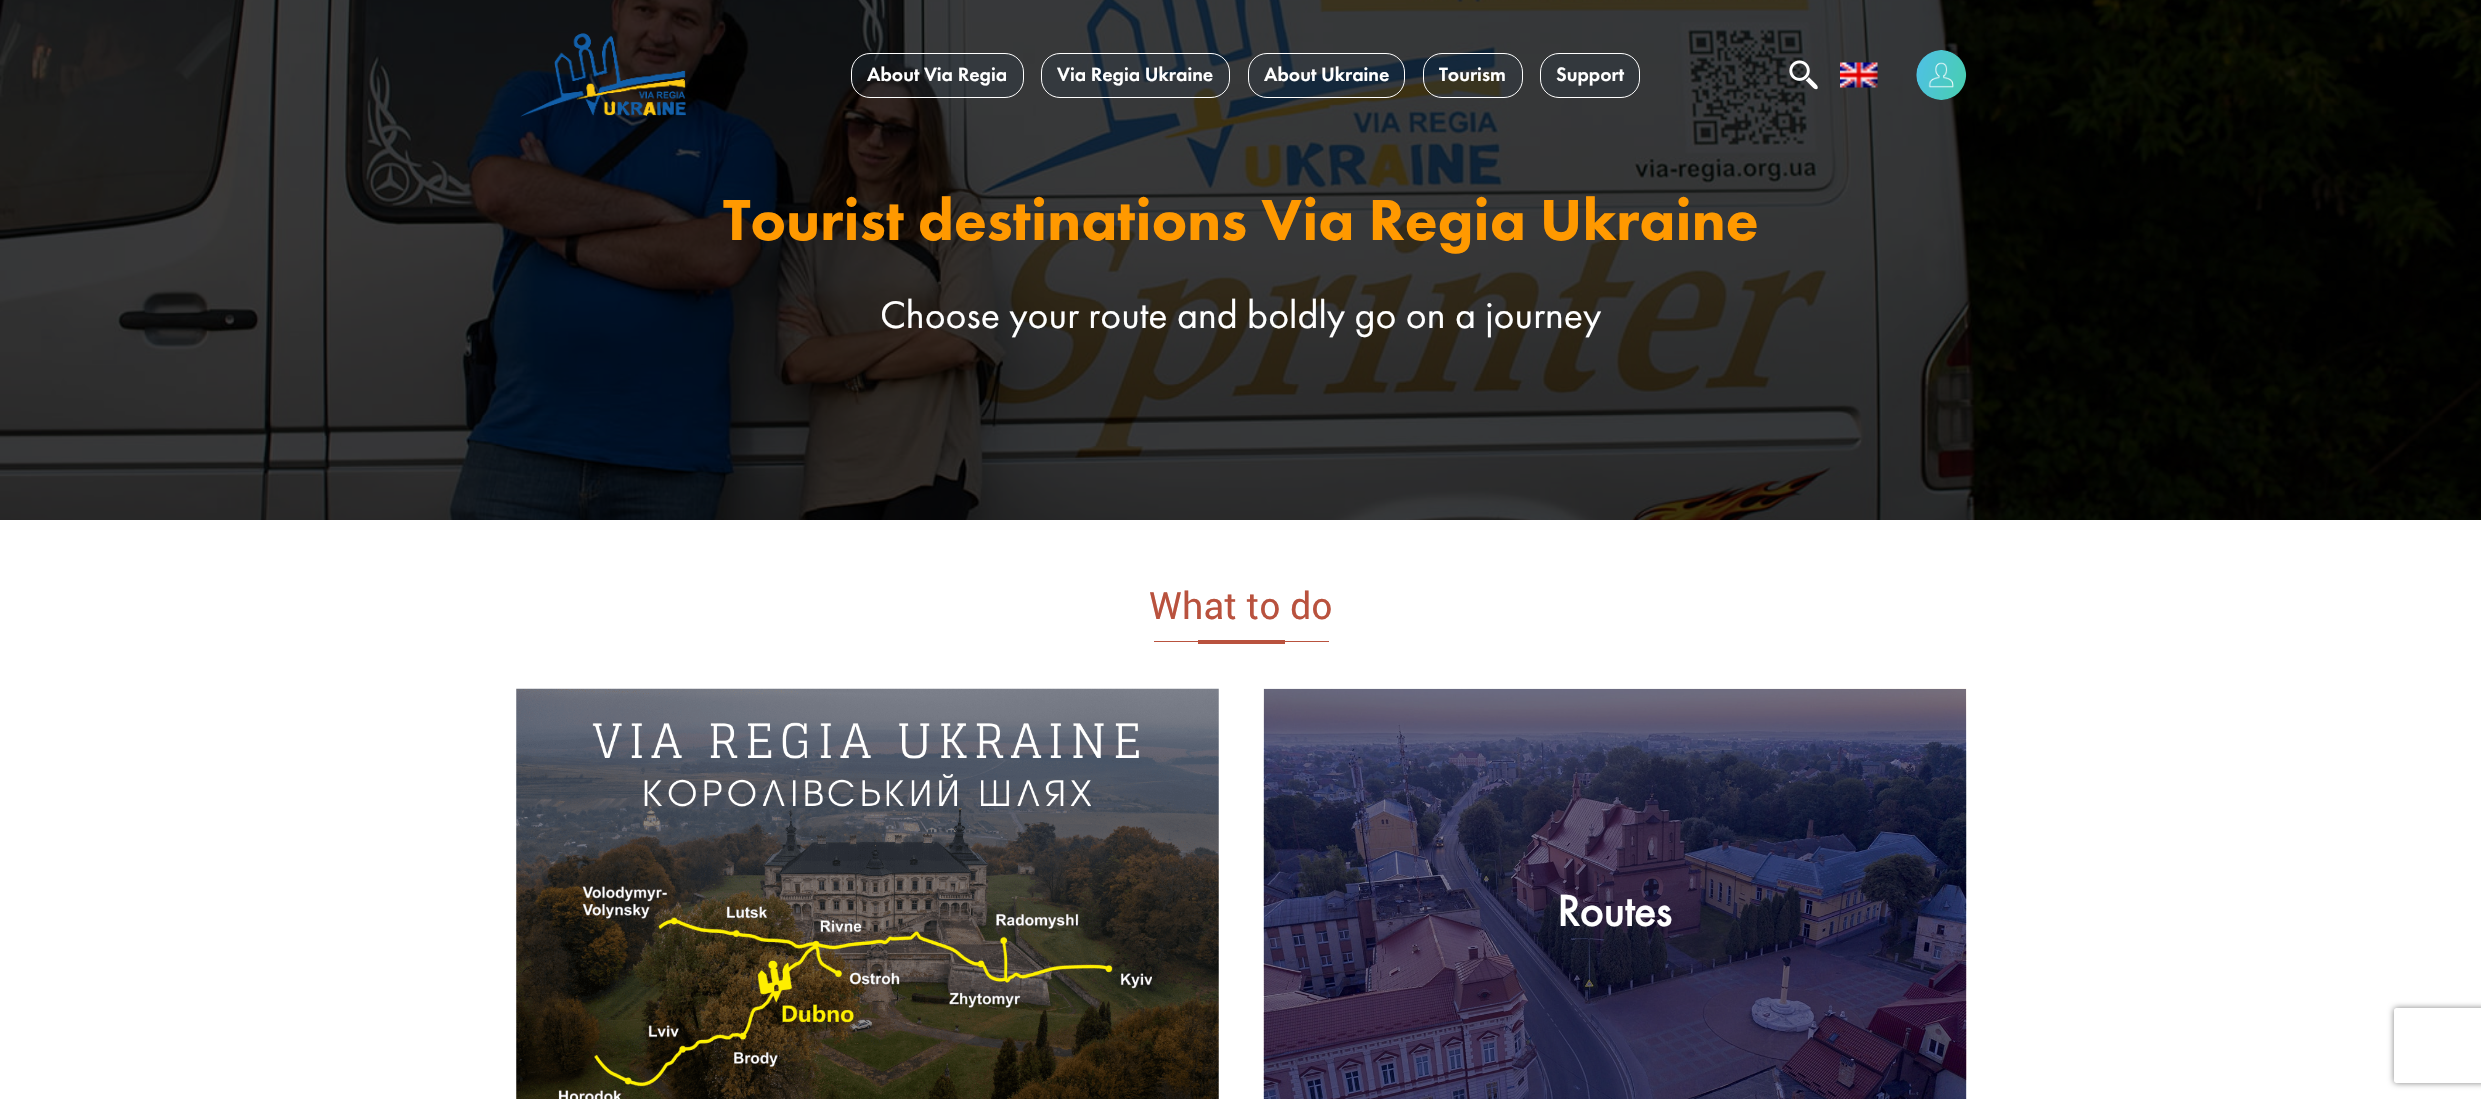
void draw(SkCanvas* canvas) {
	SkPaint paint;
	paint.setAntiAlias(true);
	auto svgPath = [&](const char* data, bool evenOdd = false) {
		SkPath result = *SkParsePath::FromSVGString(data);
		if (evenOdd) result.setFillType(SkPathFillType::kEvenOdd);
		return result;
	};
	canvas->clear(0xffffffff);
	canvas->drawImageRect(SkImages::DeferredFromEncodedData(SkData::MakeFromFileName("img5.png")), SkRect::MakeXYWH(0, 0, 2481, 520), SkSamplingOptions());
	canvas->drawImageRect(SkImages::DeferredFromEncodedData(SkData::MakeFromFileName("img1.png")), SkRect::MakeXYWH(520, 33, 166, 84), SkSamplingOptions());
	paint.setColor(0x33283c50);
	canvas->drawRoundRect(SkRect::MakeXYWH(851.5, 53.5, 172, 44), 18.5, 18.5, paint);
	paint.setStroke(true);
	paint.setStrokeWidth(1);
	paint.setColor(0xffffffff);
	canvas->drawRoundRect(SkRect::MakeXYWH(851.5, 53.5, 172, 44), 18.5, 18.5, paint);
	SkFont f1(fontMgr->matchFamilyStyle("Futura PT", SkFontStyle(500, SkFontStyle::kNormal_Width, SkFontStyle::kUpright_Slant)), 20);
	f1.setSubpixel(true);
	paint.setStroke(false);
	canvas->drawString("About Via Regia", 867, 81, f1, paint);
	paint.setColor(0x33283c50);
	canvas->drawRoundRect(SkRect::MakeXYWH(1041.5, 53.5, 188, 44), 18.5, 18.5, paint);
	paint.setStroke(true);
	paint.setColor(0xffffffff);
	canvas->drawRoundRect(SkRect::MakeXYWH(1041.5, 53.5, 188, 44), 18.5, 18.5, paint);
	paint.setStroke(false);
	canvas->drawString("Via Regia Ukraine", 1057, 81, f1, paint);
	paint.setColor(0x33283c50);
	canvas->drawRoundRect(SkRect::MakeXYWH(1248.5, 53.5, 156, 44), 18.5, 18.5, paint);
	paint.setStroke(true);
	paint.setColor(0xffffffff);
	canvas->drawRoundRect(SkRect::MakeXYWH(1248.5, 53.5, 156, 44), 18.5, 18.5, paint);
	paint.setStroke(false);
	canvas->drawString("About Ukraine", 1264, 81, f1, paint);
	paint.setColor(0x33283c50);
	canvas->drawRoundRect(SkRect::MakeXYWH(1423.5, 53.5, 99, 44), 18.5, 18.5, paint);
	paint.setStroke(true);
	paint.setColor(0xffffffff);
	canvas->drawRoundRect(SkRect::MakeXYWH(1423.5, 53.5, 99, 44), 18.5, 18.5, paint);
	paint.setStroke(false);
	canvas->drawString("Tourism", 1439, 81, f1, paint);
	paint.setColor(0xff33383d);
	canvas->drawRoundRect(SkRect::MakeXYWH(1540.5, 53.5, 99, 44), 18.5, 18.5, paint);
	paint.setStroke(true);
	paint.setColor(0xffffffff);
	canvas->drawRoundRect(SkRect::MakeXYWH(1540.5, 53.5, 99, 44), 18.5, 18.5, paint);
	paint.setStroke(false);
	canvas->drawString("Support", 1556, 81, f1, paint);
	canvas->drawImageRect(SkImages::DeferredFromEncodedData(SkData::MakeFromFileName("img2.png")), SkRect::MakeXYWH(1789, 60, 29, 30), SkSamplingOptions());
	canvas->drawImageRect(SkImages::DeferredFromEncodedData(SkData::MakeFromFileName("img3.png")), SkRect::MakeXYWH(1840, 62, 38, 26), SkSamplingOptions());
	canvas->drawImageRect(SkImages::DeferredFromEncodedData(SkData::MakeFromFileName("img4.png")), SkRect::MakeXYWH(1916, 50, 51, 50), SkSamplingOptions());
	SkFont f2(fontMgr->matchFamilyStyle("Futura PT", SkFontStyle(900, SkFontStyle::kNormal_Width, SkFontStyle::kUpright_Slant)), 60);
	f2.setSubpixel(true);
	paint.setColor(0xffff9900);
	canvas->drawString("Tourist destinations Via Regia Ukraine", 723, 240, f2, paint);
	SkFont f3(fontMgr->matchFamilyStyle("Futura PT", SkFontStyle::Normal()), 40);
	f3.setSubpixel(true);
	paint.setColor(0xffffffff);
	canvas->drawString("Choose your route and boldly go on a journey", 880, 328, f3, paint);
	SkFont f4(fontMgr->matchFamilyStyle("Roboto", SkFontStyle::Normal()), 37.5);
	f4.setSubpixel(true);
	paint.setColor(0xffb9523e);
	canvas->drawString("What to do", 1149, 619, f4, paint);
	canvas->drawRect(SkRect::MakeXYWH(1154, 641, 175, 1), paint);
	canvas->drawRect(SkRect::MakeXYWH(1198, 640, 87, 4), paint);
	canvas->drawImageRect(SkImages::DeferredFromEncodedData(SkData::MakeFromFileName("img6.png")), SkRect::MakeXYWH(516, 688, 703, 411), SkSamplingOptions());
	canvas->drawImageRect(SkImages::DeferredFromEncodedData(SkData::MakeFromFileName("img7.png")), SkRect::MakeXYWH(1263, 688, 704, 411), SkSamplingOptions());
	SkFont f5(fontMgr->matchFamilyStyle("Futura PT", SkFontStyle::Bold()), 45);
	f5.setSubpixel(true);
	paint.setColor(0xffffffff);
	canvas->drawString("Routes", 1557, 926, f5, paint);
	canvas->save();
	canvas->clipPath(svgPath("M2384 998H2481V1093H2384ZM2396.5 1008H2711.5C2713 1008 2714 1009 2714 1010.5V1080.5C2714 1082 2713 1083 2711.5 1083H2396.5C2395 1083 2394 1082 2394 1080.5V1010.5C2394 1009 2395 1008 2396.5 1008Z", true), true);
	paint.setColor(0xff808080);
	paint.setMaskFilter(SkMaskFilter::MakeBlur(kNormal_SkBlurStyle, 3));
	canvas->drawRoundRect(SkRect::MakeXYWH(2394, 1008, 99, 75), 2.5, 2.5, paint);
	paint.setMaskFilter(nullptr);
	canvas->restore();
}
